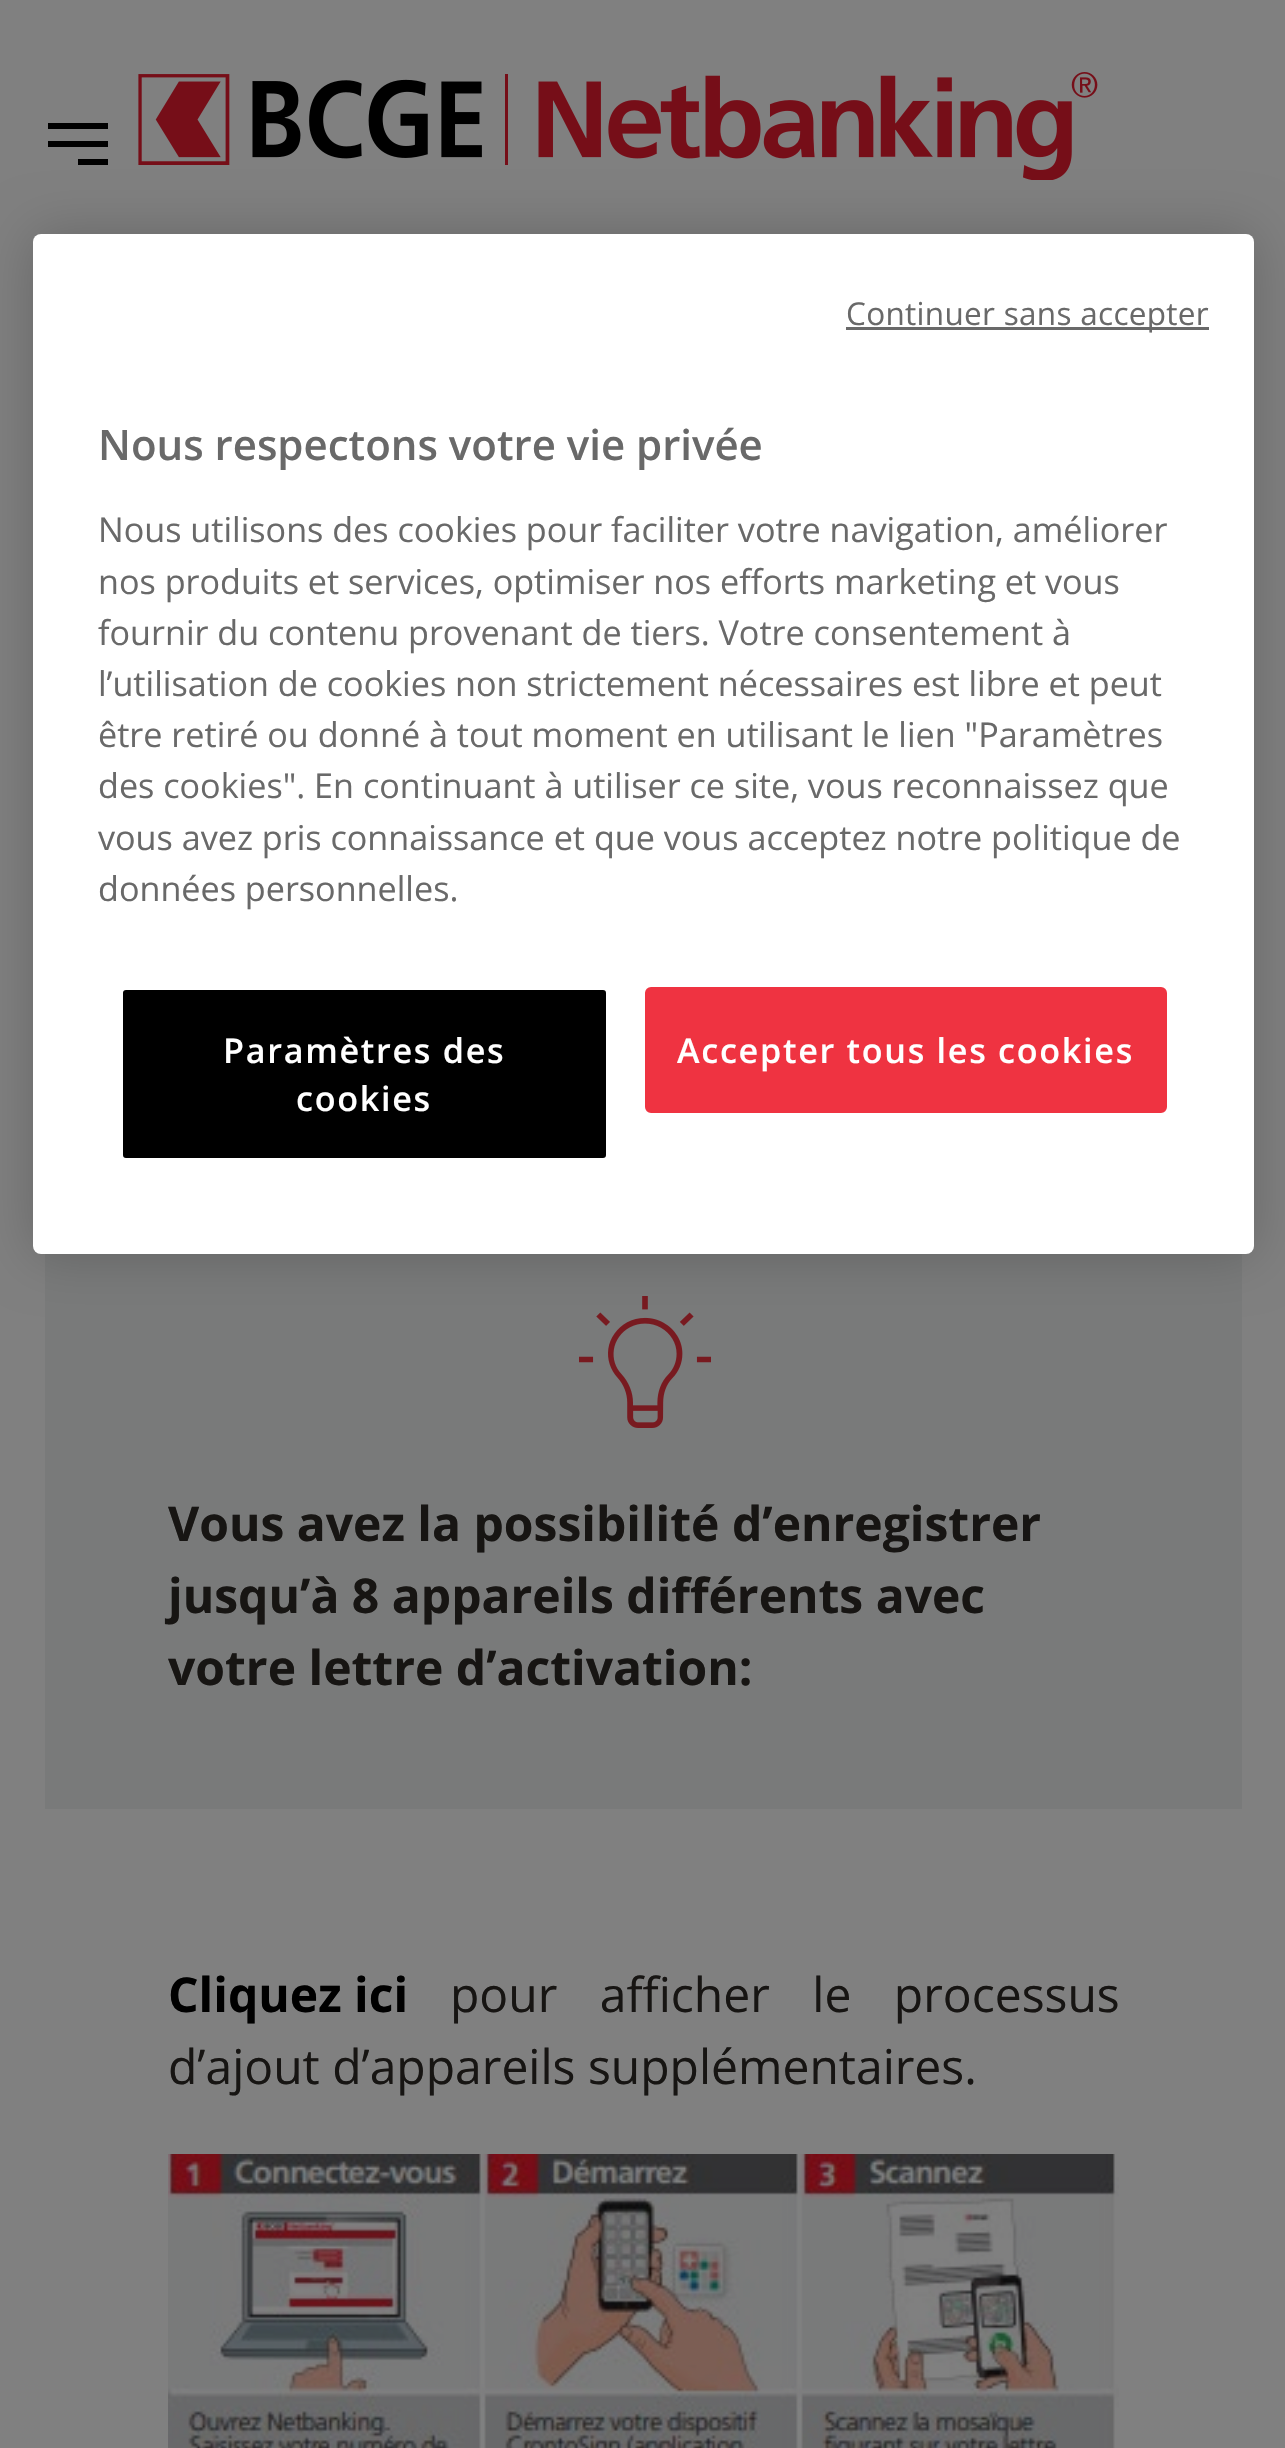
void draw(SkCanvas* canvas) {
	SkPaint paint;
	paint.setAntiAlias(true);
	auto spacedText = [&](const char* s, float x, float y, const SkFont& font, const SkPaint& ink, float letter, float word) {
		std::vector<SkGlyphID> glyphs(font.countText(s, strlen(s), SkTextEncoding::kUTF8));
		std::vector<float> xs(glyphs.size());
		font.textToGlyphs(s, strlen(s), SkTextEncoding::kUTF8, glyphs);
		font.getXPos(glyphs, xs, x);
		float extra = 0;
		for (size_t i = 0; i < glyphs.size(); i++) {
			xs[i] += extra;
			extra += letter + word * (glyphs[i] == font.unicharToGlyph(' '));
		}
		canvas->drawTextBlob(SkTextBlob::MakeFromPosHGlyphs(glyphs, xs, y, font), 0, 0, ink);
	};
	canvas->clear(0xff808080);
	paint.setColor(0xff000000);
	canvas->drawRect(SkRect::MakeXYWH(78, 159, 30, 6), paint);
	canvas->drawImageRect(SkImages::DeferredFromEncodedData(SkData::MakeFromFileName("img1.png")), SkRect::MakeXYWH(138, 72, 960, 108), SkSamplingOptions());
	paint.setColor(0xff797a7a);
	canvas->drawRect(SkRect::MakeXYWH(45, 1254, 1197, 555), paint);
	canvas->drawImageRect(SkImages::DeferredFromEncodedData(SkData::MakeFromFileName("img2.png")), SkRect::MakeXYWH(579, 1296, 132, 132), SkSamplingOptions());
	paint.setColor(0x33000000);
	paint.setMaskFilter(SkMaskFilter::MakeBlur(kNormal_SkBlurStyle, 27));
	canvas->drawRoundRect(SkRect::MakeXYWH(33, 234, 1221, 1020), 8, 8, paint);
	paint.setMaskFilter(nullptr);
	paint.setColor(0xffffffff);
	canvas->drawRoundRect(SkRect::MakeXYWH(33, 234, 1221, 1020), 8, 8, paint);
	paint.setColor(0xff696969);
	canvas->drawRect(SkRect::MakeXYWH(846, 327, 363, 3), paint);
	SkFont f1(fontMgr->matchFamilyStyle("Open Sans", SkFontStyle::Normal()), 31.5);
	f1.setSubpixel(true);
	spacedText("Continuer sans accepter", 846, 325, f1, paint, 0.3, 0);
	SkFont f2(fontMgr->matchFamilyStyle("Open Sans", SkFontStyle(600, SkFontStyle::kNormal_Width, SkFontStyle::kUpright_Slant)), 42);
	f2.setSubpixel(true);
	canvas->drawString("Nous respectons votre vie privée", 98, 460, f2, paint);
	SkFont f3(fontMgr->matchFamilyStyle("Open Sans", SkFontStyle::Normal()), 34.15);
	f3.setSubpixel(true);
	canvas->drawString("Nous utilisons des cookies pour faciliter votre navigation, améliorer", 98, 542, f3, paint);
	canvas->drawString("nos produits et services, optimiser nos efforts marketing et vous", 98, 594, f3, paint);
	canvas->drawString("fournir du contenu provenant de tiers. Votre consentement à", 98, 645, f3, paint);
	canvas->drawString("l’utilisation de cookies non strictement nécessaires est libre et peut", 98, 696, f3, paint);
	canvas->drawString("être retiré ou donné à tout moment en utilisant le lien \"Paramètres", 98, 747, f3, paint);
	canvas->drawString("des cookies\". En continuant à utiliser ce site, vous reconnaissez que", 98, 798, f3, paint);
	canvas->drawString("vous avez pris connaissance et que vous acceptez notre politique de", 98, 850, f3, paint);
	canvas->drawString("données personnelles.", 98, 901, f3, paint);
	paint.setColor(0xff000000);
	canvas->drawRoundRect(SkRect::MakeXYWH(121.5, 988.5, 486, 171), 4.5, 4.5, paint);
	paint.setStroke(true);
	paint.setStrokeWidth(3);
	paint.setColor(0xffffffff);
	canvas->drawRoundRect(SkRect::MakeXYWH(121.5, 988.5, 486, 171), 4.5, 4.5, paint);
	SkFont f4(fontMgr->matchFamilyStyle("Open Sans", SkFontStyle(600, SkFontStyle::kNormal_Width, SkFontStyle::kUpright_Slant)), 34.15);
	f4.setSubpixel(true);
	paint.setStroke(false);
	spacedText("Paramètres des", 223, 1063, f4, paint, 1.7, 0);
	spacedText("cookies", 296, 1111, f4, paint, 1.7, 0);
	paint.setColor(0xffef3341);
	canvas->drawRoundRect(SkRect::MakeXYWH(646.5, 988.5, 519, 123), 4.5, 4.5, paint);
	paint.setStroke(true);
	canvas->drawRoundRect(SkRect::MakeXYWH(646.5, 988.5, 519, 123), 4.5, 4.5, paint);
	paint.setStroke(false);
	paint.setColor(0xffffffff);
	spacedText("Accepter tous les cookies", 677, 1063, f4, paint, 1.7, 0);
	paint.setColor(0xff000000);
	canvas->drawRect(SkRect::MakeXYWH(48, 123, 60, 6), paint);
	canvas->drawRect(SkRect::MakeXYWH(48, 141, 60, 6), paint);
	SkFont f5(fontMgr->matchFamilyStyle("Open Sans", SkFontStyle::Bold()), 48);
	f5.setSubpixel(true);
	paint.setColor(0xff171513);
	canvas->drawString("Vous avez la possibilité d’enregistrer", 168, 1541, f5, paint);
	canvas->drawString("jusqu’à 8 appareils différents avec", 168, 1613, f5, paint);
	canvas->drawString("votre lettre d’activation:", 168, 1685, f5, paint);
	paint.setColor(0xff000000);
	canvas->drawString("Cliquez ici", 168, 2012, f5, paint);
	SkFont f6(fontMgr->matchFamilyStyle("Open Sans", SkFontStyle::Normal()), 48);
	f6.setSubpixel(true);
	paint.setColor(0xff171513);
	spacedText("pour afficher le processus", 450, 2012, f6, paint, 0, 30);
	canvas->drawString("d’ajout d’appareils supplémentaires.", 168, 2084, f6, paint);
	canvas->drawImageRect(SkImages::DeferredFromEncodedData(SkData::MakeFromFileName("img3.png")), SkRect::MakeXYWH(168, 2154, 951, 294), SkSamplingOptions());
}
